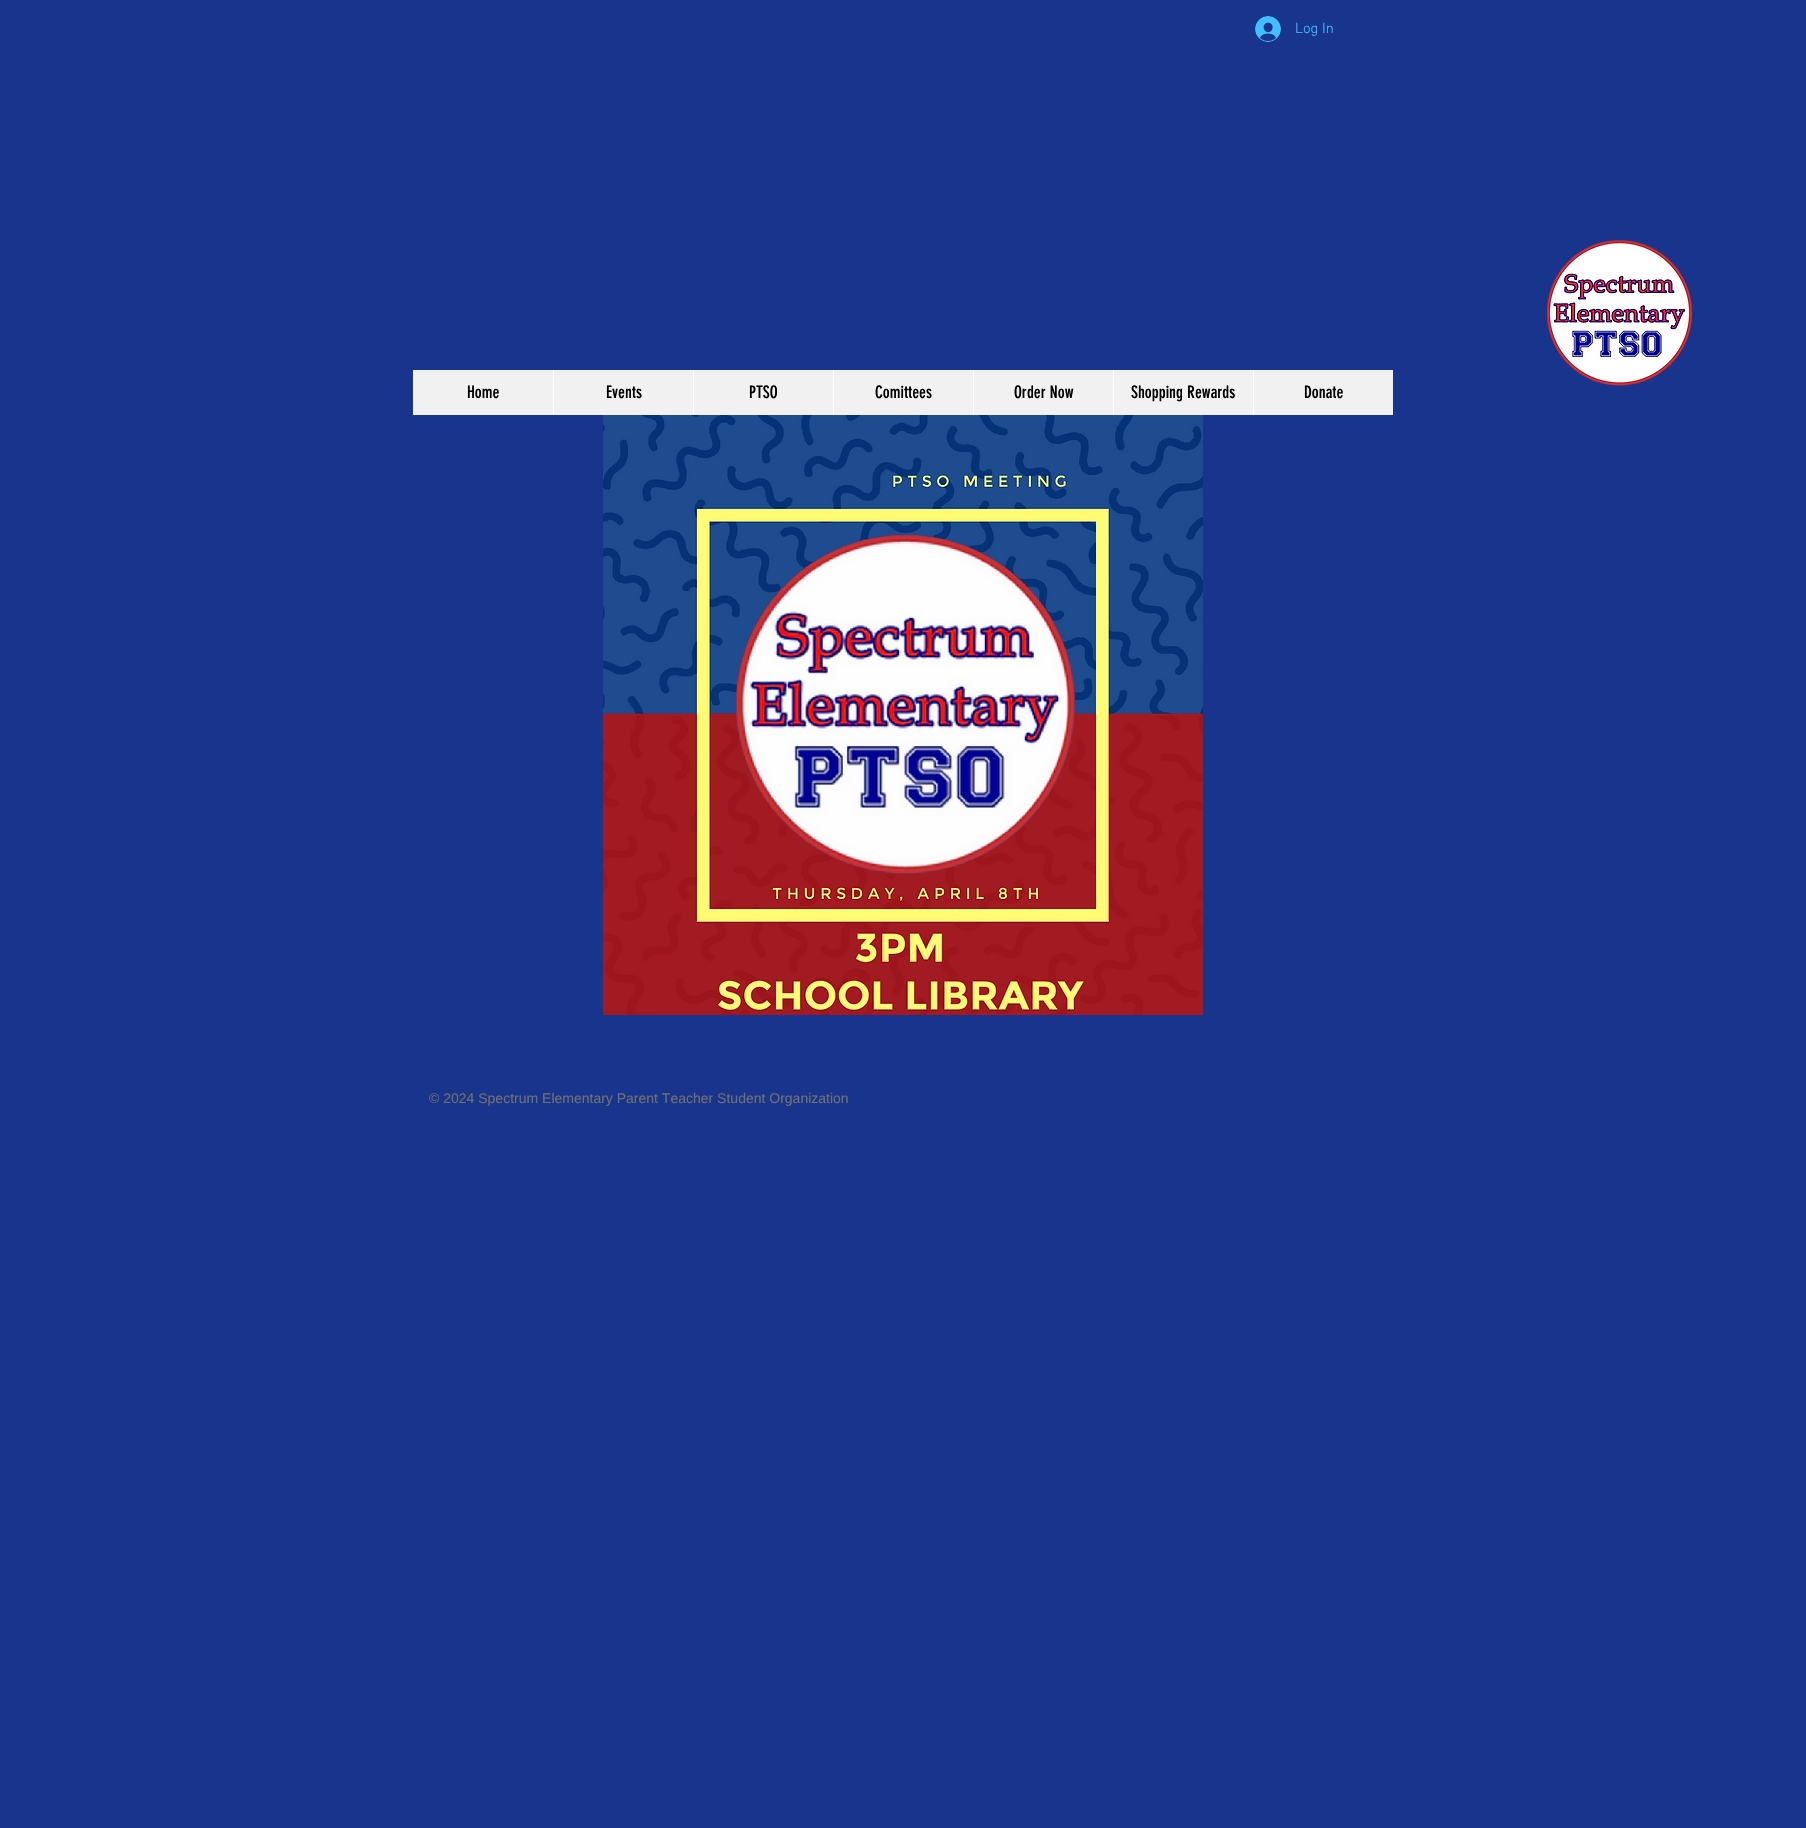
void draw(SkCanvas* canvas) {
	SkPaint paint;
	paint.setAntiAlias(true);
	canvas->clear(0xff19348c);
	canvas->drawImageRect(SkImages::DeferredFromEncodedData(SkData::MakeFromFileName("img1.png")), SkRect::MakeXYWH(1255, 16, 26, 26), SkSamplingOptions());
	SkFont f1(fontMgr->matchFamilyStyle("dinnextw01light", SkFontStyle(300, SkFontStyle::kNormal_Width, SkFontStyle::kUpright_Slant)), 15);
	f1.setSubpixel(true);
	paint.setColor(0xff41bfff);
	canvas->drawString("Log In", 1295, 33, f1, paint);
	canvas->drawImageRect(SkImages::DeferredFromEncodedData(SkData::MakeFromFileName("img2.png")), SkRect::MakeXYWH(1546, 240, 147, 146), SkSamplingOptions());
	paint.setColor(0xfff1f1f1);
	canvas->drawRect(SkRect::MakeXYWH(413, 370, 980, 45), paint);
	SkFont f2(fontMgr->matchFamilyStyle("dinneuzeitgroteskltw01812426", SkFontStyle::Normal()), 17);
	f2.setSubpixel(true);
	paint.setColor(0xff000000);
	canvas->drawString("Home", 467, 398, f2, paint);
	paint.setColor(0xffffffff);
	canvas->drawRect(SkRect::MakeXYWH(553, 370, 1, 45), paint);
	paint.setColor(0xff000000);
	canvas->drawString("Events", 606, 398, f2, paint);
	paint.setColor(0xffffffff);
	canvas->drawRect(SkRect::MakeXYWH(693, 370, 1, 45), paint);
	paint.setColor(0xff000000);
	canvas->drawString("PTSO", 749, 398, f2, paint);
	paint.setColor(0xffffffff);
	canvas->drawRect(SkRect::MakeXYWH(833, 370, 1, 45), paint);
	paint.setColor(0xff000000);
	canvas->drawString("Comittees", 875, 398, f2, paint);
	paint.setColor(0xffffffff);
	canvas->drawRect(SkRect::MakeXYWH(973, 370, 1, 45), paint);
	paint.setColor(0xff000000);
	canvas->drawString("Order Now", 1014, 398, f2, paint);
	paint.setColor(0xffffffff);
	canvas->drawRect(SkRect::MakeXYWH(1113, 370, 1, 45), paint);
	paint.setColor(0xff000000);
	canvas->drawString("Shopping Rewards", 1131, 398, f2, paint);
	paint.setColor(0xffffffff);
	canvas->drawRect(SkRect::MakeXYWH(1253, 370, 1, 45), paint);
	paint.setColor(0xff000000);
	canvas->drawString("Donate", 1304, 398, f2, paint);
	canvas->drawImageRect(SkImages::DeferredFromEncodedData(SkData::MakeFromFileName("img3.png")), SkRect::MakeXYWH(603, 415, 600, 600), SkSamplingOptions());
	SkFont f3(fontMgr->matchFamilyStyle("Liberation Sans", SkFontStyle::Normal()), 14);
	f3.setSubpixel(true);
	paint.setColor(0xff707070);
	canvas->drawString("© 2024 Spectrum Elementary Parent Teacher Student Organization", 429, 1103, f3, paint);
}
